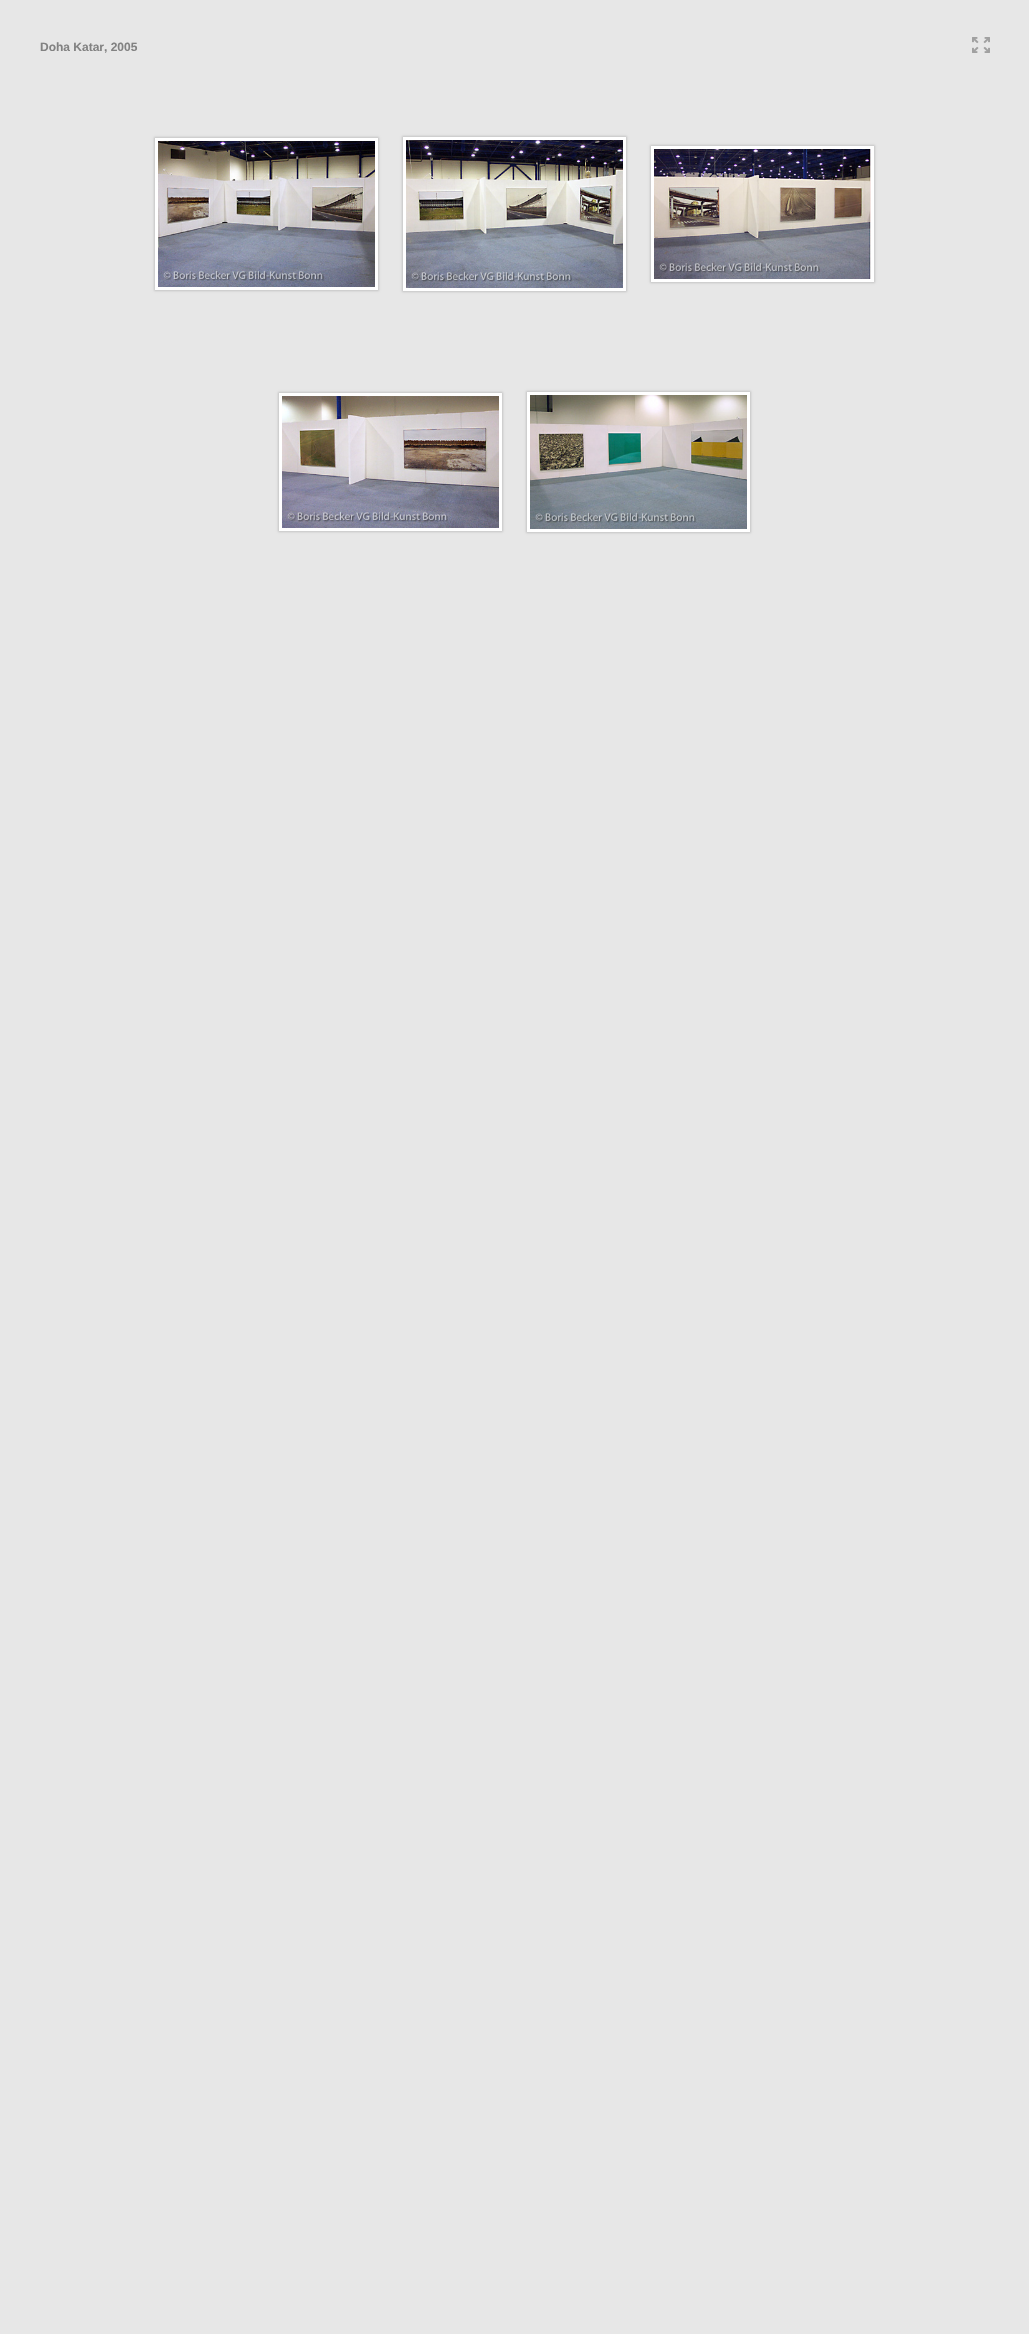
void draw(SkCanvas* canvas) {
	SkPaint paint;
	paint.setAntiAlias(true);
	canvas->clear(0xffe7e7e7);
	SkFont f1(fontMgr->matchFamilyStyle("Liberation Sans", SkFontStyle::Bold()), 12);
	f1.setSubpixel(true);
	paint.setColor(0xff828282);
	canvas->drawString("Doha Katar, 2005", 40, 51, f1, paint);
	canvas->drawImageRect(SkImages::DeferredFromEncodedData(SkData::MakeFromFileName("img1.png")), SkRect::MakeXYWH(972, 37, 18, 16), SkSamplingOptions());
	paint.setColor(0x26000000);
	paint.setMaskFilter(SkMaskFilter::MakeBlur(kNormal_SkBlurStyle, 1));
	canvas->drawRect(SkRect::MakeXYWH(154, 137, 225, 154), paint);
	paint.setMaskFilter(nullptr);
	paint.setStroke(true);
	paint.setStrokeWidth(3);
	paint.setColor(0xffffffff);
	canvas->drawRect(SkRect::MakeXYWH(156.5, 139.5, 220, 149), paint);
	canvas->drawImageRect(SkImages::DeferredFromEncodedData(SkData::MakeFromFileName("img2.png")), SkRect::MakeXYWH(158, 141, 217, 146), SkSamplingOptions());
	paint.setStroke(false);
	paint.setColor(0x26000000);
	paint.setMaskFilter(SkMaskFilter::MakeBlur(kNormal_SkBlurStyle, 1));
	canvas->drawRect(SkRect::MakeXYWH(402, 136, 225, 156), paint);
	paint.setMaskFilter(nullptr);
	paint.setStroke(true);
	paint.setColor(0xffffffff);
	canvas->drawRect(SkRect::MakeXYWH(404.5, 138.5, 220, 151), paint);
	canvas->drawImageRect(SkImages::DeferredFromEncodedData(SkData::MakeFromFileName("img3.png")), SkRect::MakeXYWH(406, 140, 217, 148), SkSamplingOptions());
	paint.setStroke(false);
	paint.setColor(0x26000000);
	paint.setMaskFilter(SkMaskFilter::MakeBlur(kNormal_SkBlurStyle, 1));
	canvas->drawRect(SkRect::MakeXYWH(650, 145, 225, 138), paint);
	paint.setMaskFilter(nullptr);
	paint.setStroke(true);
	paint.setColor(0xffffffff);
	canvas->drawRect(SkRect::MakeXYWH(652.5, 147.5, 220, 133), paint);
	canvas->drawImageRect(SkImages::DeferredFromEncodedData(SkData::MakeFromFileName("img4.png")), SkRect::MakeXYWH(654, 149, 217, 130), SkSamplingOptions());
	paint.setStroke(false);
	paint.setColor(0x26000000);
	paint.setMaskFilter(SkMaskFilter::MakeBlur(kNormal_SkBlurStyle, 1));
	canvas->drawRect(SkRect::MakeXYWH(278, 392, 225, 140), paint);
	paint.setMaskFilter(nullptr);
	paint.setStroke(true);
	paint.setColor(0xffffffff);
	canvas->drawRect(SkRect::MakeXYWH(280.5, 394.5, 220, 135), paint);
	canvas->drawImageRect(SkImages::DeferredFromEncodedData(SkData::MakeFromFileName("img5.png")), SkRect::MakeXYWH(282, 396, 217, 132), SkSamplingOptions());
	paint.setStroke(false);
	paint.setColor(0x26000000);
	paint.setMaskFilter(SkMaskFilter::MakeBlur(kNormal_SkBlurStyle, 1));
	canvas->drawRect(SkRect::MakeXYWH(526, 391, 225, 142), paint);
	paint.setMaskFilter(nullptr);
	paint.setStroke(true);
	paint.setColor(0xffffffff);
	canvas->drawRect(SkRect::MakeXYWH(528.5, 393.5, 220, 137), paint);
	canvas->drawImageRect(SkImages::DeferredFromEncodedData(SkData::MakeFromFileName("img6.png")), SkRect::MakeXYWH(530, 395, 217, 134), SkSamplingOptions());
}
